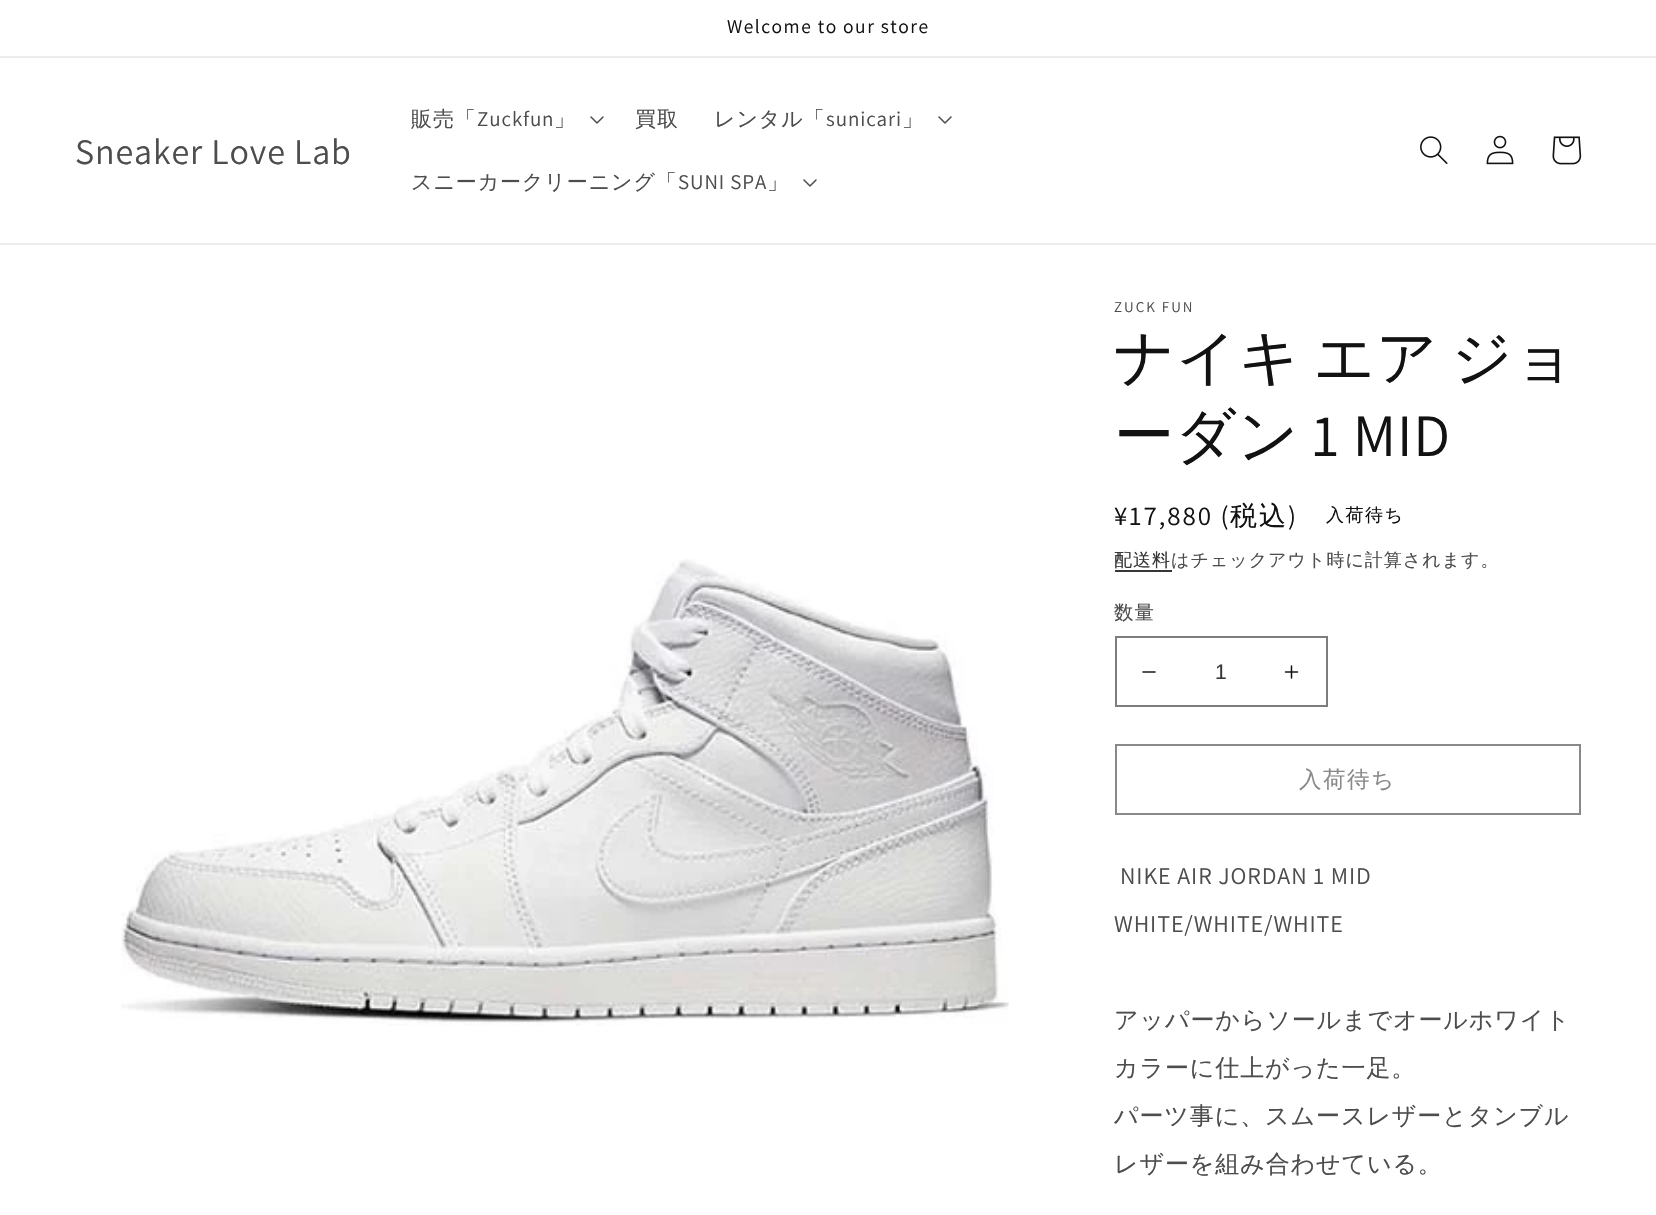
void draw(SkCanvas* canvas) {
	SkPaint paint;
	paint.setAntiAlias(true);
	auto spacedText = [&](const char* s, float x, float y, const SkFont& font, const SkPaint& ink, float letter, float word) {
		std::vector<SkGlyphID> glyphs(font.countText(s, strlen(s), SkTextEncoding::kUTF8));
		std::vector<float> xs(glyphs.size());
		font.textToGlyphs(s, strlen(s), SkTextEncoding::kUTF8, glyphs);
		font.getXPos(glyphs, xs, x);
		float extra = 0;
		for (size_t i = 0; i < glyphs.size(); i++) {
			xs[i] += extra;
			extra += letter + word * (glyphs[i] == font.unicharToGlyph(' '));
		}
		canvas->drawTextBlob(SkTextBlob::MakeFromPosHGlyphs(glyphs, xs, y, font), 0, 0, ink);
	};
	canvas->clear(0xffffffff);
	paint.setColor(0xffececec);
	canvas->drawRect(SkRect::MakeXYWH(0, 56, 1656, 2), paint);
	SkFont f1(fontMgr->matchFamilyStyle("Assistant", SkFontStyle::Normal()), 19.5);
	f1.setSubpixel(true);
	paint.setColor(0xff121212);
	spacedText("Welcome to our store", 727, 33, f1, paint, 1.5, 0);
	paint.setColor(0xffececec);
	canvas->drawRect(SkRect::MakeXYWH(0, 243, 1656, 2), paint);
	SkFont f2(fontMgr->matchFamilyStyle("Assistant", SkFontStyle::Normal()), 36);
	f2.setSubpixel(true);
	paint.setColor(0xff4d4d4d);
	spacedText("Sneaker Love Lab", 75, 164, f2, paint, 0.9, 0);
	SkFont f3(fontMgr->matchFamilyStyle("WenQuanYi Zen Hei", SkFontStyle(500, SkFontStyle::kNormal_Width, SkFontStyle::kUpright_Slant)), 21);
	f3.setSubpixel(true);
	spacedText("販売「", 411, 126, f3, paint, 0.9, 0);
	SkFont f4(fontMgr->matchFamilyStyle("Assistant", SkFontStyle::Normal()), 21);
	f4.setSubpixel(true);
	spacedText("Zuckfun", 477, 126, f4, paint, 0.9, 0);
	spacedText("」", 554, 126, f3, paint, 0.9, 0);
	canvas->drawImageRect(SkImages::DeferredFromEncodedData(SkData::MakeFromFileName("img1.png")), SkRect::MakeXYWH(590, 116, 14, 8), SkSamplingOptions());
	spacedText("買取", 635, 126, f3, paint, 0.9, 0);
	spacedText("レンタル「", 714, 126, f3, paint, 0.9, 0);
	spacedText("sunicari", 826, 126, f4, paint, 0.9, 0);
	spacedText("」", 902, 126, f3, paint, 0.9, 0);
	canvas->drawImageRect(SkImages::DeferredFromEncodedData(SkData::MakeFromFileName("img1.png")), SkRect::MakeXYWH(938, 116, 14, 8), SkSamplingOptions());
	spacedText("スニーカークリーニング「", 411, 189, f3, paint, 0.9, 0);
	spacedText("SUNI SPA", 678, 189, f4, paint, 0.9, 0);
	spacedText("」", 767, 189, f3, paint, 0.9, 0);
	canvas->drawImageRect(SkImages::DeferredFromEncodedData(SkData::MakeFromFileName("img1.png")), SkRect::MakeXYWH(803, 179, 14, 8), SkSamplingOptions());
	canvas->drawImageRect(SkImages::DeferredFromEncodedData(SkData::MakeFromFileName("img2.png")), SkRect::MakeXYWH(1420, 136, 28, 28), SkSamplingOptions());
	canvas->drawImageRect(SkImages::DeferredFromEncodedData(SkData::MakeFromFileName("img3.png")), SkRect::MakeXYWH(1486, 135, 28, 30), SkSamplingOptions());
	canvas->drawImageRect(SkImages::DeferredFromEncodedData(SkData::MakeFromFileName("img4.png")), SkRect::MakeXYWH(1552, 136, 30, 29), SkSamplingOptions());
	canvas->drawImageRect(SkImages::DeferredFromEncodedData(SkData::MakeFromFileName("img5.png")), SkRect::MakeXYWH(121, 559, 888, 467), SkSamplingOptions());
	SkFont f5(fontMgr->matchFamilyStyle("Assistant", SkFontStyle::Normal()), 15);
	f5.setSubpixel(true);
	spacedText("ZUCK FUN", 1114, 312, f5, paint, 2, 0);
	SkFont f6(fontMgr->matchFamilyStyle("WenQuanYi Zen Hei", SkFontStyle(500, SkFontStyle::kNormal_Width, SkFontStyle::kUpright_Slant)), 60);
	f6.setSubpixel(true);
	paint.setColor(0xff121212);
	spacedText("ナイキ エア ジョ", 1114, 378, f6, paint, 0.9, -6);
	spacedText("ーダン", 1114, 456, f6, paint, 0.9, 0);
	SkFont f7(fontMgr->matchFamilyStyle("Assistant", SkFontStyle::Normal()), 60);
	f7.setSubpixel(true);
	spacedText("1 MID", 1312, 456, f7, paint, 0.9, 0);
	SkFont f8(fontMgr->matchFamilyStyle("Assistant", SkFontStyle::Normal()), 27);
	f8.setSubpixel(true);
	spacedText("¥17,880 (", 1114, 525, f8, paint, 2, 0);
	SkFont f9(fontMgr->matchFamilyStyle("WenQuanYi Zen Hei", SkFontStyle(500, SkFontStyle::kNormal_Width, SkFontStyle::kUpright_Slant)), 27);
	f9.setSubpixel(true);
	spacedText("税込", 1230, 525, f9, paint, 2, 0);
	spacedText(")", 1288, 525, f8, paint, 2, 0);
	SkFont f10(fontMgr->matchFamilyStyle("WenQuanYi Zen Hei", SkFontStyle(500, SkFontStyle::kNormal_Width, SkFontStyle::kUpright_Slant)), 18);
	f10.setSubpixel(true);
	spacedText("入荷待ち", 1326, 521, f10, paint, 1.5, 0);
	paint.setColor(0xff363636);
	spacedText("配送料", 1114, 566, f10, paint, 1, 0);
	canvas->drawRect(SkRect::MakeXYWH(1115, 570, 57, 2), paint);
	paint.setColor(0xff4d4d4d);
	spacedText("はチェックアウト時に計算されます。", 1171, 566, f10, paint, 1, 0);
	SkFont f11(fontMgr->matchFamilyStyle("WenQuanYi Zen Hei", SkFontStyle(500, SkFontStyle::kNormal_Width, SkFontStyle::kUpright_Slant)), 19.5);
	f11.setSubpixel(true);
	spacedText("数量", 1114, 619, f11, paint, 1, 0);
	canvas->drawImageRect(SkImages::DeferredFromEncodedData(SkData::MakeFromFileName("img6.png")), SkRect::MakeXYWH(1142, 671, 14, 2), SkSamplingOptions());
	canvas->drawImageRect(SkImages::DeferredFromEncodedData(SkData::MakeFromFileName("img7.png")), SkRect::MakeXYWH(1284, 665, 15, 14), SkSamplingOptions());
	paint.setStroke(true);
	paint.setStrokeWidth(2);
	paint.setColor(0xff7d7d7d);
	canvas->drawRect(SkRect::MakeXYWH(1116, 637, 211, 69), paint);
	SkFont f12(fontMgr->matchFamilyStyle("Liberation Sans", SkFontStyle::Normal()), 21);
	f12.setSubpixel(true);
	paint.setStroke(false);
	paint.setColor(0xff363636);
	canvas->drawString("1", 1215, 679, f12, paint);
	paint.setStroke(true);
	paint.setColor(0xff898989);
	canvas->drawRect(SkRect::MakeXYWH(1116, 745, 464, 69), paint);
	SkFont f13(fontMgr->matchFamilyStyle("WenQuanYi Zen Hei", SkFontStyle(500, SkFontStyle::kNormal_Width, SkFontStyle::kUpright_Slant)), 22.5);
	f13.setSubpixel(true);
	paint.setStroke(false);
	spacedText("入荷待ち", 1299, 787, f13, paint, 1.5, 0);
	SkFont f14(fontMgr->matchFamilyStyle("Assistant", SkFontStyle::Normal()), 24);
	f14.setSubpixel(true);
	paint.setColor(0xff4d4d4d);
	spacedText("NIKE AIR JORDAN 1 MID", 1120, 884, f14, paint, 0.9, 0);
	spacedText("WHITE/WHITE/WHITE", 1114, 932, f14, paint, 0.9, 0);
	SkFont f15(fontMgr->matchFamilyStyle("WenQuanYi Zen Hei", SkFontStyle(500, SkFontStyle::kNormal_Width, SkFontStyle::kUpright_Slant)), 24);
	f15.setSubpixel(true);
	spacedText("アッパーからソールまでオールホワイト", 1114, 1028, f15, paint, 0.9, 0);
	spacedText("カラーに仕上がった一足。", 1114, 1076, f15, paint, 0.9, 0);
	spacedText("パーツ事に、スムースレザーとタンブル", 1114, 1124, f15, paint, 0.9, 0);
	spacedText("レザーを組み合わせている。", 1114, 1172, f15, paint, 0.9, 0);
}
